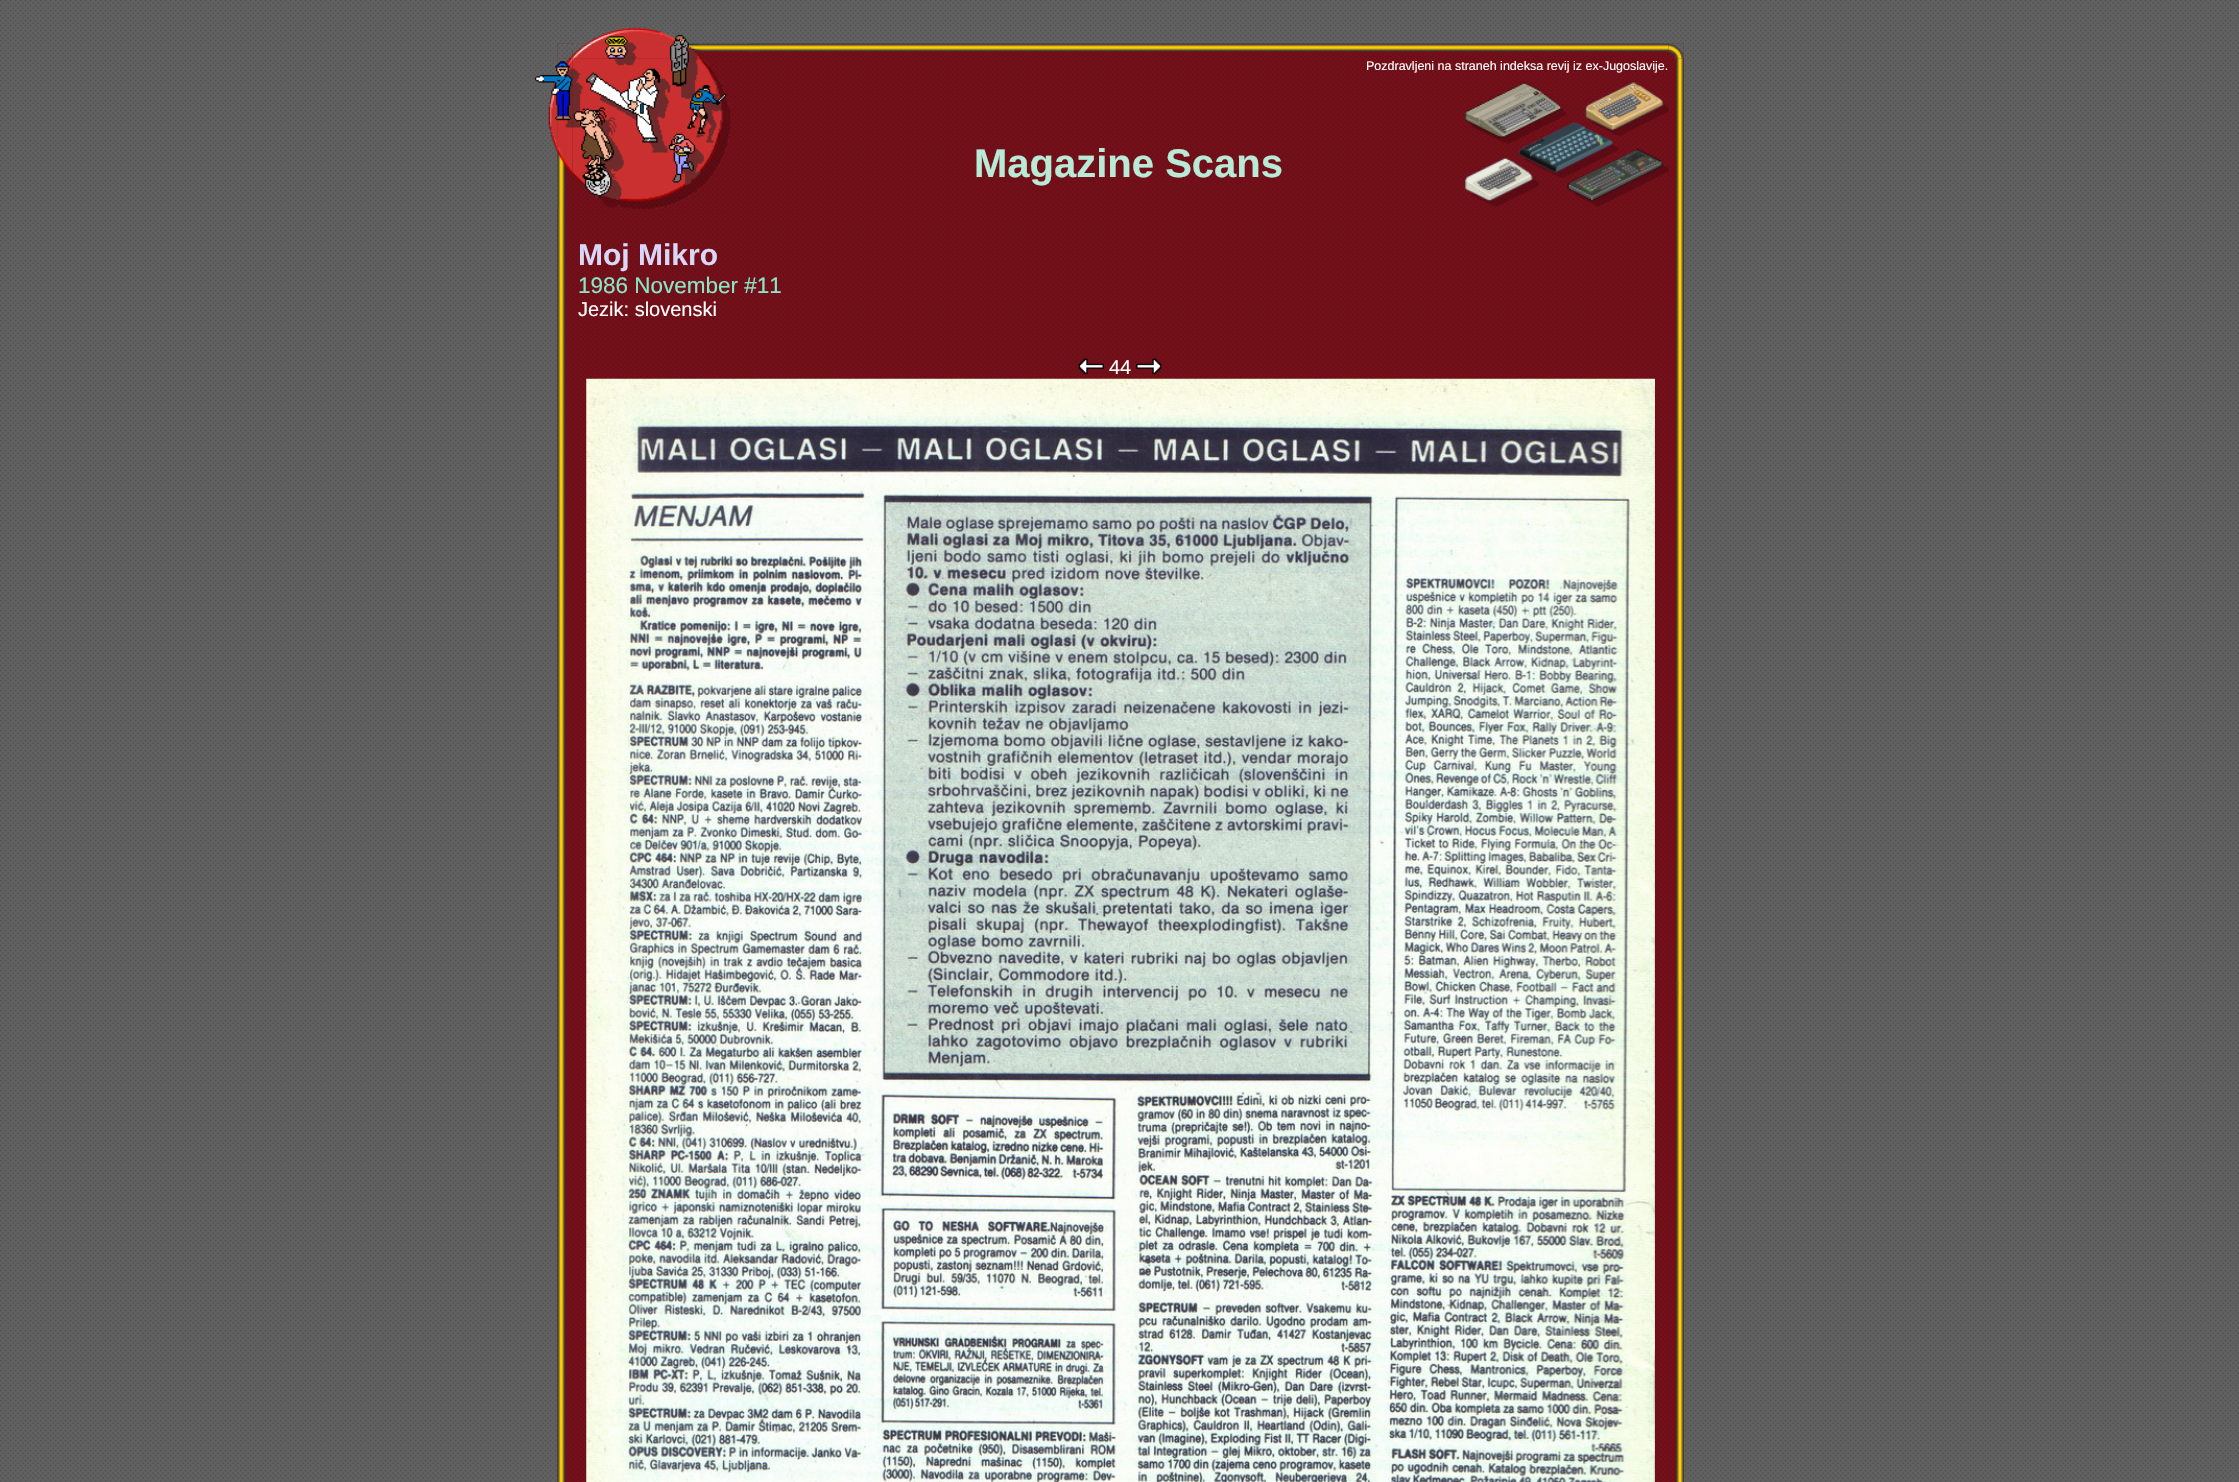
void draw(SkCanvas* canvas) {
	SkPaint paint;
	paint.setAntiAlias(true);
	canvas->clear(0xffffffff);
	canvas->drawImageRect(SkImages::DeferredFromEncodedData(SkData::MakeFromFileName("img1.png")), SkRect::MakeXYWH(0, 0, 2239, 1482), SkSamplingOptions());
	canvas->drawImageRect(SkImages::DeferredFromEncodedData(SkData::MakeFromFileName("img4.png")), SkRect::MakeXYWH(557, 43, 1127, 1439), SkSamplingOptions());
	canvas->drawImageRect(SkImages::DeferredFromEncodedData(SkData::MakeFromFileName("img6.png")), SkRect::MakeXYWH(572, 43, 1097, 9), SkSamplingOptions());
	canvas->drawImageRect(SkImages::DeferredFromEncodedData(SkData::MakeFromFileName("img2.png")), SkRect::MakeXYWH(572, 27, 177, 17), SkSamplingOptions());
	canvas->drawImageRect(SkImages::DeferredFromEncodedData(SkData::MakeFromFileName("img9.png")), SkRect::MakeXYWH(557, 58, 9, 1424), SkSamplingOptions());
	canvas->drawImageRect(SkImages::DeferredFromEncodedData(SkData::MakeFromFileName("img3.png")), SkRect::MakeXYWH(534, 58, 24, 151), SkSamplingOptions());
	canvas->drawImageRect(SkImages::DeferredFromEncodedData(SkData::MakeFromFileName("img5.png")), SkRect::MakeXYWH(557, 43, 16, 16), SkSamplingOptions());
	canvas->drawImageRect(SkImages::DeferredFromEncodedData(SkData::MakeFromFileName("img7.png")), SkRect::MakeXYWH(572, 43, 188, 16), SkSamplingOptions());
	canvas->drawImageRect(SkImages::DeferredFromEncodedData(SkData::MakeFromFileName("img16.png")), SkRect::MakeXYWH(1676, 58, 8, 1424), SkSamplingOptions());
	canvas->drawImageRect(SkImages::DeferredFromEncodedData(SkData::MakeFromFileName("img8.png")), SkRect::MakeXYWH(1668, 43, 16, 16), SkSamplingOptions());
	canvas->drawImageRect(SkImages::DeferredFromEncodedData(SkData::MakeFromFileName("img10.png")), SkRect::MakeXYWH(557, 58, 16, 151), SkSamplingOptions());
	canvas->drawImageRect(SkImages::DeferredFromEncodedData(SkData::MakeFromFileName("img11.png")), SkRect::MakeXYWH(572, 58, 159, 151), SkSamplingOptions());
	SkFont f1(fontMgr->matchFamilyStyle("Liberation Sans", SkFontStyle::Normal()), 12.5);
	f1.setSubpixel(true);
	paint.setColor(0xffffffff);
	canvas->drawString("Pozdravljeni na straneh indeksa revij iz ex-Jugoslavije.", 1366, 70, f1, paint);
	SkFont f2(fontMgr->matchFamilyStyle("Liberation Sans", SkFontStyle::Bold()), 40);
	f2.setSubpixel(true);
	paint.setColor(0xffb9ead7);
	canvas->drawString("Magazine Scans", 974, 177, f2, paint);
	canvas->drawImageRect(SkImages::DeferredFromEncodedData(SkData::MakeFromFileName("img12.png")), SkRect::MakeXYWH(1465, 82, 204, 125), SkSamplingOptions());
	SkFont f3(fontMgr->matchFamilyStyle("Liberation Sans", SkFontStyle::Bold()), 30);
	f3.setSubpixel(true);
	paint.setColor(0xffd9d7f7);
	canvas->drawString("Moj Mikro", 578, 265, f3, paint);
	SkFont f4(fontMgr->matchFamilyStyle("Liberation Sans", SkFontStyle::Normal()), 22.5);
	f4.setSubpixel(true);
	paint.setColor(0xff89e7c7);
	canvas->drawString("1986 November #11", 578, 293, f4, paint);
	SkFont f5(fontMgr->matchFamilyStyle("Liberation Sans", SkFontStyle::Normal()), 20);
	f5.setSubpixel(true);
	paint.setColor(0xffffffff);
	canvas->drawString("Jezik: slovenski", 578, 316, f5, paint);
	canvas->drawImageRect(SkImages::DeferredFromEncodedData(SkData::MakeFromFileName("img13.png")), SkRect::MakeXYWH(1078, 358, 26, 16), SkSamplingOptions());
	canvas->drawString("44", 1109, 374, f5, paint);
	canvas->drawImageRect(SkImages::DeferredFromEncodedData(SkData::MakeFromFileName("img14.png")), SkRect::MakeXYWH(1136, 358, 26, 16), SkSamplingOptions());
	canvas->drawImageRect(SkImages::DeferredFromEncodedData(SkData::MakeFromFileName("img15.png")), SkRect::MakeXYWH(586, 378, 1069, 1104), SkSamplingOptions());
	canvas->drawImageRect(SkImages::DeferredFromEncodedData(SkData::MakeFromFileName("img17.png")), SkRect::MakeXYWH(1676, 981, 8, 15), SkSamplingOptions());
}
